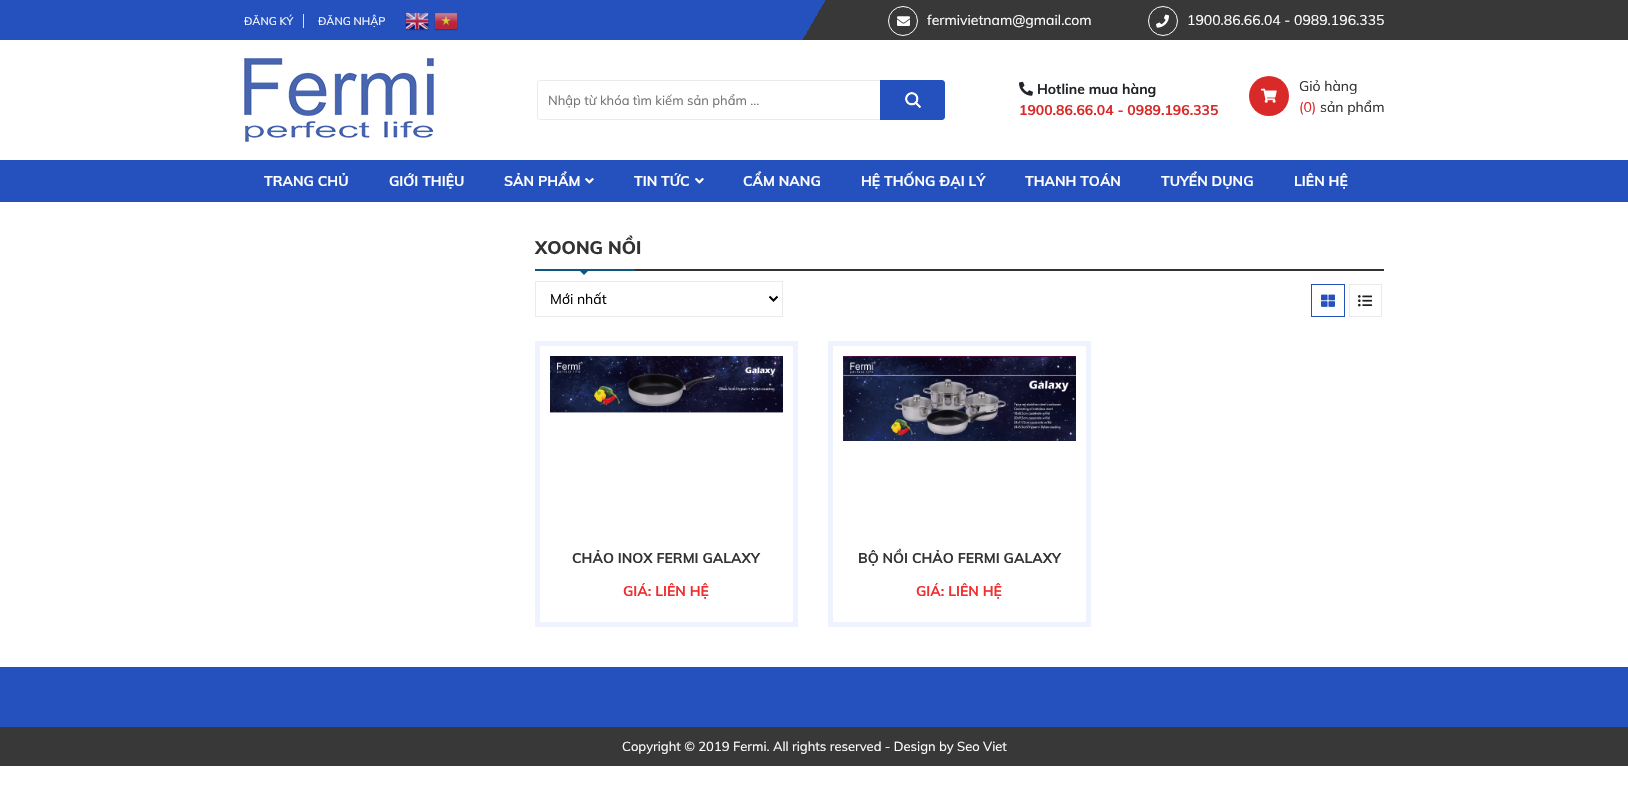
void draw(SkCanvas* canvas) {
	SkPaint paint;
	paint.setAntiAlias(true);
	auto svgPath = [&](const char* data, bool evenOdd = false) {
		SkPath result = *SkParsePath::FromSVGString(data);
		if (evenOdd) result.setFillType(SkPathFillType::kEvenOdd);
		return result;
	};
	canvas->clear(0xffffffff);
	{
		const SkColor colors[] = {0xff2551be, 0xff383838};
		const float stops[] = {0.5, 0.5};
		const SkPoint ends[] = {{195, -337}, {1433, 377}};
		paint.setShader(SkGradientShader::MakeLinear(ends, colors, stops, 2, SkTileMode::kClamp));
		paint.setAlpha(255);
	}
	canvas->drawRect(SkRect::MakeXYWH(0, 0, 1628, 40), paint);
	SkFont f1(fontMgr->matchFamilyStyle("Muli", SkFontStyle::Normal()), 11);
	f1.setSubpixel(true);
	paint.setShader(nullptr);
	paint.setColor(0xffffffff);
	canvas->drawString("ĐĂNG KÝ", 244, 25, f1, paint);
	paint.setColor(0xffe0e0e0);
	canvas->drawRect(SkRect::MakeXYWH(303, 14, 1, 14), paint);
	paint.setColor(0xffffffff);
	canvas->drawString("ĐĂNG NHẬP", 318, 25, f1, paint);
	canvas->drawImageRect(SkImages::DeferredFromEncodedData(SkData::MakeFromFileName("img1.png")), SkRect::MakeXYWH(405, 12, 24, 19), SkSamplingOptions());
	canvas->drawImageRect(SkImages::DeferredFromEncodedData(SkData::MakeFromFileName("img2.png")), SkRect::MakeXYWH(434, 12, 24, 19), SkSamplingOptions());
	paint.setStroke(true);
	paint.setStrokeWidth(1);
	canvas->drawCircle(903, 21, 14.5, paint);
	canvas->drawImageRect(SkImages::DeferredFromEncodedData(SkData::MakeFromFileName("img3.png")), SkRect::MakeXYWH(897, 16, 13, 10), SkSamplingOptions());
	SkFont f2(fontMgr->matchFamilyStyle("Muli", SkFontStyle::Normal()), 14);
	f2.setSubpixel(true);
	paint.setStroke(false);
	canvas->drawString("fermivietnam@gmail.com", 927, 25, f2, paint);
	paint.setStroke(true);
	canvas->drawCircle(1163, 21, 14.5, paint);
	canvas->drawImageRect(SkImages::DeferredFromEncodedData(SkData::MakeFromFileName("img4.png")), SkRect::MakeXYWH(1156, 14, 13, 14), SkSamplingOptions());
	paint.setStroke(false);
	canvas->drawString("1900.86.66.04 - 0989.196.335", 1187, 25, f2, paint);
	canvas->drawImageRect(SkImages::DeferredFromEncodedData(SkData::MakeFromFileName("img5.png")), SkRect::MakeXYWH(244, 58, 190, 84), SkSamplingOptions());
	paint.setStroke(true);
	paint.setColor(0xffebebeb);
	canvas->drawRoundRect(SkRect::MakeXYWH(537.5, 80.5, 407, 39), 2.5, 2.5, paint);
	SkFont f3(fontMgr->matchFamilyStyle("Muli", SkFontStyle::Normal()), 13);
	f3.setSubpixel(true);
	paint.setStroke(false);
	paint.setColor(0xff757575);
	canvas->drawString("Nhập từ khóa tìm kiếm sản phẩm ...", 548, 105, f3, paint);
	paint.setColor(0xff2551be);
	canvas->drawPath(svgPath("M880 80H942C943.5 80 945 81.5 945 83V117C945 118.5 943.5 120 942 120H880Z"), paint);
	canvas->drawImageRect(SkImages::DeferredFromEncodedData(SkData::MakeFromFileName("img6.png")), SkRect::MakeXYWH(905, 92, 16, 16), SkSamplingOptions());
	canvas->drawImageRect(SkImages::DeferredFromEncodedData(SkData::MakeFromFileName("img7.png")), SkRect::MakeXYWH(1019, 81, 14, 15), SkSamplingOptions());
	SkFont f4(fontMgr->matchFamilyStyle("Muli", SkFontStyle::Bold()), 14);
	f4.setSubpixel(true);
	paint.setColor(0xff212529);
	canvas->drawString("Hotline mua hàng", 1037, 94, f4, paint);
	paint.setColor(0xffd92929);
	canvas->drawString("1900.86.66.04 - 0989.196.335", 1019, 115, f4, paint);
	canvas->drawCircle(1269, 96, 20, paint);
	canvas->drawImageRect(SkImages::DeferredFromEncodedData(SkData::MakeFromFileName("img8.png")), SkRect::MakeXYWH(1261, 88, 16, 15), SkSamplingOptions());
	paint.setColor(0xff333333);
	canvas->drawString("Giỏ hàng", 1299, 91, f2, paint);
	paint.setColor(0xffd92929);
	canvas->drawString("(0)", 1299, 112, f2, paint);
	paint.setColor(0xff333333);
	canvas->drawString("sản phẩm", 1320, 112, f2, paint);
	paint.setColor(0xff2551be);
	canvas->drawRect(SkRect::MakeXYWH(0, 160, 1628, 42), paint);
	paint.setColor(0xffffffff);
	canvas->drawString("TRANG CHỦ", 264, 186, f4, paint);
	canvas->drawString("GIỚI THIỆU", 389, 186, f4, paint);
	canvas->drawString("SẢN PHẨM", 504, 186, f4, paint);
	canvas->drawImageRect(SkImages::DeferredFromEncodedData(SkData::MakeFromFileName("img9.png")), SkRect::MakeXYWH(585, 178, 9, 6), SkSamplingOptions());
	canvas->drawString("TIN TỨC", 634, 186, f4, paint);
	canvas->drawImageRect(SkImages::DeferredFromEncodedData(SkData::MakeFromFileName("img9.png")), SkRect::MakeXYWH(695, 178, 9, 6), SkSamplingOptions());
	canvas->drawString("CẨM NANG", 743, 186, f4, paint);
	canvas->drawString("HỆ THỐNG ĐẠI LÝ", 861, 186, f4, paint);
	canvas->drawString("THANH TOÁN", 1025, 186, f4, paint);
	canvas->drawString("TUYỂN DỤNG", 1161, 186, f4, paint);
	canvas->drawString("LIÊN HỆ", 1294, 186, f4, paint);
	paint.setColor(0xff333333);
	canvas->drawRect(SkRect::MakeXYWH(635, 269, 749, 2), paint);
	SkFont f5(fontMgr->matchFamilyStyle("Muli", SkFontStyle(800, SkFontStyle::kNormal_Width, SkFontStyle::kUpright_Slant)), 18);
	f5.setSubpixel(true);
	canvas->drawString("XOONG NỒI", 535, 254, f5, paint);
	paint.setColor(0xff0e587f);
	canvas->drawRect(SkRect::MakeXYWH(535, 269, 100, 2), paint);
	canvas->drawPath(svgPath("M580 271H588L584 275Z"), paint);
	paint.setStroke(true);
	paint.setColor(0xffebebeb);
	canvas->drawRect(SkRect::MakeXYWH(535.5, 281.5, 247, 35), paint);
	paint.setStrokeWidth(2);
	paint.setColor(0xff000000);
	canvas->drawPath(svgPath("M769.5 296.5L773.5 300.5L777.5 296.5"), paint);
	paint.setStroke(false);
	canvas->drawString("Mới nhất", 550, 304, f2, paint);
	paint.setStroke(true);
	paint.setStrokeWidth(1);
	paint.setColor(0xff2551be);
	canvas->drawRect(SkRect::MakeXYWH(1311.5, 284.5, 33, 32), paint);
	canvas->drawImageRect(SkImages::DeferredFromEncodedData(SkData::MakeFromFileName("img10.png")), SkRect::MakeXYWH(1321, 294, 14, 13), SkSamplingOptions());
	paint.setColor(0xffebebeb);
	canvas->drawRect(SkRect::MakeXYWH(1349.5, 284.5, 32, 32), paint);
	canvas->drawImageRect(SkImages::DeferredFromEncodedData(SkData::MakeFromFileName("img11.png")), SkRect::MakeXYWH(1358, 295, 14, 12), SkSamplingOptions());
	paint.setStrokeWidth(5);
	paint.setColor(0xffeef3ff);
	canvas->drawRect(SkRect::MakeXYWH(537.5, 343.5, 258, 281), paint);
	canvas->drawImageRect(SkImages::DeferredFromEncodedData(SkData::MakeFromFileName("img12.png")), SkRect::MakeXYWH(550, 356, 233, 57), SkSamplingOptions());
	paint.setStroke(false);
	paint.setColor(0xff333333);
	canvas->drawString("CHẢO INOX FERMI GALAXY", 572, 563, f4, paint);
	paint.setColor(0xffef2e2f);
	canvas->drawString("GIÁ: LIÊN HỆ", 623, 596, f4, paint);
	paint.setStroke(true);
	paint.setColor(0xffeef3ff);
	canvas->drawRect(SkRect::MakeXYWH(830.5, 343.5, 258, 281), paint);
	canvas->drawImageRect(SkImages::DeferredFromEncodedData(SkData::MakeFromFileName("img13.png")), SkRect::MakeXYWH(843, 356, 233, 85), SkSamplingOptions());
	paint.setStroke(false);
	paint.setColor(0xff333333);
	canvas->drawString("BỘ NỒI CHẢO FERMI GALAXY", 858, 563, f4, paint);
	paint.setColor(0xffef2e2f);
	canvas->drawString("GIÁ: LIÊN HỆ", 916, 596, f4, paint);
	paint.setColor(0xff2551be);
	canvas->drawRect(SkRect::MakeXYWH(0, 667, 1628, 60), paint);
	paint.setColor(0xff383838);
	canvas->drawRect(SkRect::MakeXYWH(0, 727, 1628, 39), paint);
	paint.setColor(0xffffffff);
	canvas->drawString("Copyright © 2019 Fermi. All rights reserved - Design by Seo Viet", 622, 751, f3, paint);
}
